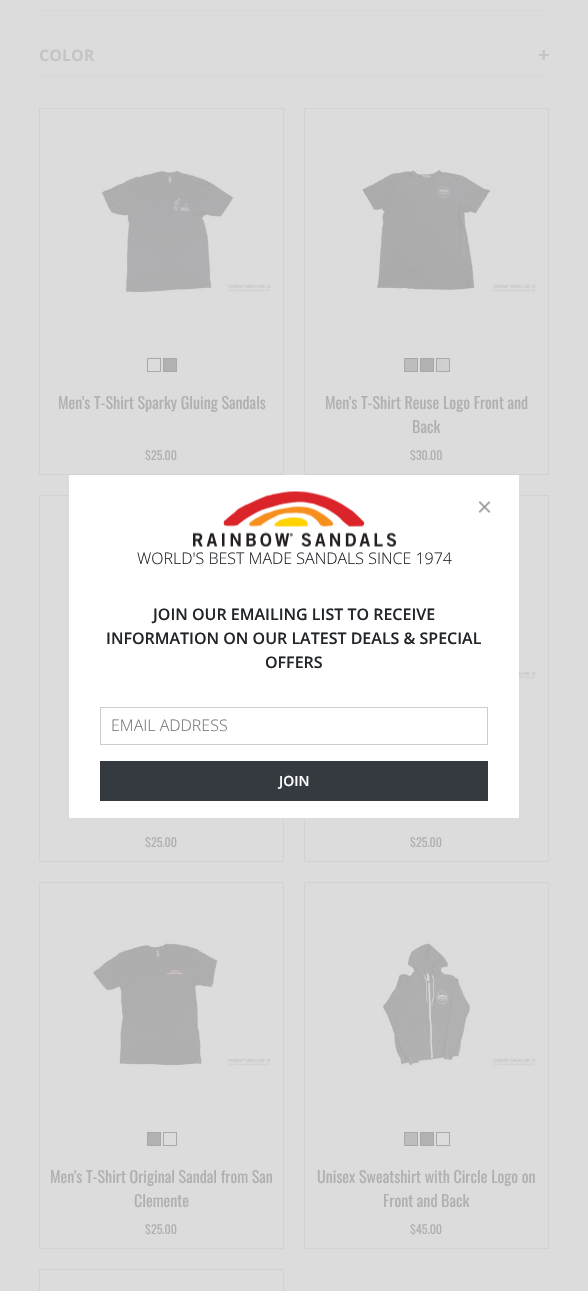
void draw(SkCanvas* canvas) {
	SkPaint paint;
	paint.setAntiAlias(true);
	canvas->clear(0xffdcdcdc);
	paint.setColor(0xffd8d8d8);
	canvas->drawRect(SkRect::MakeXYWH(39, 10, 510, 1), paint);
	canvas->drawRect(SkRect::MakeXYWH(39, 75, 510, 1), paint);
	SkFont f1(fontMgr->matchFamilyStyle("Open Sans", SkFontStyle::Bold()), 16);
	f1.setSubpixel(true);
	paint.setColor(0xffc4c5c7);
	canvas->drawString("COLOR", 39, 61, f1, paint);
	SkFont f2(fontMgr->matchFamilyStyle("Open Sans", SkFontStyle::Bold()), 20);
	f2.setSubpixel(true);
	canvas->drawString("+", 538, 62, f2, paint);
	paint.setStroke(true);
	paint.setStrokeWidth(1);
	paint.setColor(0xffd2d2d2);
	canvas->drawRect(SkRect::MakeXYWH(39.5, 108.5, 244, 366), paint);
	canvas->drawImageRect(SkImages::DeferredFromEncodedData(SkData::MakeFromFileName("img1.png")), SkRect::MakeXYWH(101, 170, 171, 123), SkSamplingOptions());
	paint.setColor(0xffa9a9a9);
	canvas->drawRect(SkRect::MakeXYWH(147.5, 358.5, 13, 13), paint);
	canvas->drawImageRect(SkImages::DeferredFromEncodedData(SkData::MakeFromFileName("img2.png")), SkRect::MakeXYWH(164, 359, 12, 12), SkSamplingOptions());
	canvas->drawRect(SkRect::MakeXYWH(163.5, 358.5, 13, 13), paint);
	SkFont f3(fontMgr->matchFamilyStyle("Oswald", SkFontStyle::Normal()), 16);
	f3.setSubpixel(true);
	paint.setStroke(false);
	paint.setColor(0xffafb0b1);
	canvas->drawString("Men's T-Shirt Sparky Gluing Sandals", 58, 409, f3, paint);
	SkFont f4(fontMgr->matchFamilyStyle("Oswald", SkFontStyle::Normal()), 12);
	f4.setSubpixel(true);
	canvas->drawString("$25.00", 145, 460, f4, paint);
	paint.setStroke(true);
	paint.setColor(0xffd2d2d2);
	canvas->drawRect(SkRect::MakeXYWH(304.5, 108.5, 244, 366), paint);
	canvas->drawImageRect(SkImages::DeferredFromEncodedData(SkData::MakeFromFileName("img3.png")), SkRect::MakeXYWH(361, 169, 176, 124), SkSamplingOptions());
	paint.setStroke(false);
	paint.setColor(0xffbcbdba);
	canvas->drawRect(SkRect::MakeXYWH(404.5, 358.5, 13, 13), paint);
	paint.setStroke(true);
	paint.setColor(0xffa9a9a9);
	canvas->drawRect(SkRect::MakeXYWH(404.5, 358.5, 13, 13), paint);
	canvas->drawImageRect(SkImages::DeferredFromEncodedData(SkData::MakeFromFileName("img4.png")), SkRect::MakeXYWH(421, 359, 12, 12), SkSamplingOptions());
	canvas->drawRect(SkRect::MakeXYWH(420.5, 358.5, 13, 13), paint);
	canvas->drawImageRect(SkImages::DeferredFromEncodedData(SkData::MakeFromFileName("img5.png")), SkRect::MakeXYWH(437, 359, 12, 12), SkSamplingOptions());
	canvas->drawRect(SkRect::MakeXYWH(436.5, 358.5, 13, 13), paint);
	paint.setStroke(false);
	paint.setColor(0xffafb0b1);
	canvas->drawString("Men's T-Shirt Reuse Logo Front and", 325, 409, f3, paint);
	canvas->drawString("Back", 412, 433, f3, paint);
	canvas->drawString("$30.00", 410, 460, f4, paint);
	paint.setStroke(true);
	paint.setColor(0xffd2d2d2);
	canvas->drawRect(SkRect::MakeXYWH(39.5, 495.5, 244, 366), paint);
	paint.setStroke(false);
	paint.setColor(0xffafb0b1);
	canvas->drawString("$25.00", 145, 847, f4, paint);
	paint.setStroke(true);
	paint.setColor(0xffd2d2d2);
	canvas->drawRect(SkRect::MakeXYWH(304.5, 495.5, 244, 366), paint);
	canvas->drawImageRect(SkImages::DeferredFromEncodedData(SkData::MakeFromFileName("img6.png")), SkRect::MakeXYWH(519, 552, 18, 128), SkSamplingOptions());
	paint.setStroke(false);
	paint.setColor(0xffafb0b1);
	canvas->drawString("$25.00", 410, 847, f4, paint);
	paint.setStroke(true);
	paint.setColor(0xffd2d2d2);
	canvas->drawRect(SkRect::MakeXYWH(39.5, 882.5, 244, 366), paint);
	canvas->drawImageRect(SkImages::DeferredFromEncodedData(SkData::MakeFromFileName("img7.png")), SkRect::MakeXYWH(92, 939, 179, 128), SkSamplingOptions());
	canvas->drawImageRect(SkImages::DeferredFromEncodedData(SkData::MakeFromFileName("img4.png")), SkRect::MakeXYWH(148, 1133, 12, 12), SkSamplingOptions());
	paint.setColor(0xffa9a9a9);
	canvas->drawRect(SkRect::MakeXYWH(147.5, 1132.5, 13, 13), paint);
	canvas->drawRect(SkRect::MakeXYWH(163.5, 1132.5, 13, 13), paint);
	paint.setStroke(false);
	paint.setColor(0xffafb0b1);
	canvas->drawString("Men's T-Shirt Original Sandal from San", 50, 1183, f3, paint);
	canvas->drawString("Clemente", 134, 1207, f3, paint);
	canvas->drawString("$25.00", 145, 1234, f4, paint);
	paint.setStroke(true);
	paint.setColor(0xffd2d2d2);
	canvas->drawRect(SkRect::MakeXYWH(304.5, 882.5, 244, 366), paint);
	canvas->drawImageRect(SkImages::DeferredFromEncodedData(SkData::MakeFromFileName("img8.png")), SkRect::MakeXYWH(382, 939, 155, 128), SkSamplingOptions());
	paint.setStroke(false);
	paint.setColor(0xffbcbdba);
	canvas->drawRect(SkRect::MakeXYWH(404.5, 1132.5, 13, 13), paint);
	paint.setStroke(true);
	paint.setColor(0xffa9a9a9);
	canvas->drawRect(SkRect::MakeXYWH(404.5, 1132.5, 13, 13), paint);
	canvas->drawImageRect(SkImages::DeferredFromEncodedData(SkData::MakeFromFileName("img4.png")), SkRect::MakeXYWH(421, 1133, 12, 12), SkSamplingOptions());
	canvas->drawRect(SkRect::MakeXYWH(420.5, 1132.5, 13, 13), paint);
	canvas->drawRect(SkRect::MakeXYWH(436.5, 1132.5, 13, 13), paint);
	paint.setStroke(false);
	paint.setColor(0xffafb0b1);
	canvas->drawString("Unisex Sweatshirt with Circle Logo on", 317, 1183, f3, paint);
	canvas->drawString("Front and Back", 383, 1207, f3, paint);
	canvas->drawString("$45.00", 410, 1234, f4, paint);
	paint.setStroke(true);
	paint.setColor(0xffd2d2d2);
	canvas->drawRect(SkRect::MakeXYWH(39.5, 1269.5, 244, 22), paint);
	paint.setStroke(false);
	paint.setColor(0xffffffff);
	canvas->drawRect(SkRect::MakeXYWH(69, 475, 450, 343), paint);
	canvas->drawImageRect(SkImages::DeferredFromEncodedData(SkData::MakeFromFileName("img9.png")), SkRect::MakeXYWH(479, 501, 11, 12), SkSamplingOptions());
	canvas->drawImageRect(SkImages::DeferredFromEncodedData(SkData::MakeFromFileName("img10.png")), SkRect::MakeXYWH(193, 491, 203, 56), SkSamplingOptions());
	SkFont f5(fontMgr->matchFamilyStyle("Open Sans", SkFontStyle(300, SkFontStyle::kNormal_Width, SkFontStyle::kUpright_Slant)), 16);
	f5.setSubpixel(true);
	paint.setColor(0xff212529);
	canvas->drawString("WORLD'S BEST MADE SANDALS SINCE 1974", 137, 564, f5, paint);
	SkFont f6(fontMgr->matchFamilyStyle("Open Sans", SkFontStyle(600, SkFontStyle::kNormal_Width, SkFontStyle::kUpright_Slant)), 16);
	f6.setSubpixel(true);
	canvas->drawString("JOIN OUR EMAILING LIST TO RECEIVE", 153, 620, f6, paint);
	canvas->drawString("INFORMATION ON OUR LATEST DEALS & SPECIAL", 106, 644, f6, paint);
	canvas->drawString("OFFERS", 265, 668, f6, paint);
	paint.setStroke(true);
	paint.setColor(0xffcccccc);
	canvas->drawRect(SkRect::MakeXYWH(100.5, 707.5, 387, 37), paint);
	paint.setStroke(false);
	paint.setColor(0xff757575);
	canvas->drawString("EMAIL ADDRESS", 111, 731, f5, paint);
	paint.setColor(0xff343a40);
	canvas->drawRect(SkRect::MakeXYWH(100, 761, 388, 40), paint);
	SkFont f7(fontMgr->matchFamilyStyle("Open Sans", SkFontStyle(600, SkFontStyle::kNormal_Width, SkFontStyle::kUpright_Slant)), 14);
	f7.setSubpixel(true);
	paint.setColor(0xffffffff);
	canvas->drawString("JOIN", 279, 786, f7, paint);
}
